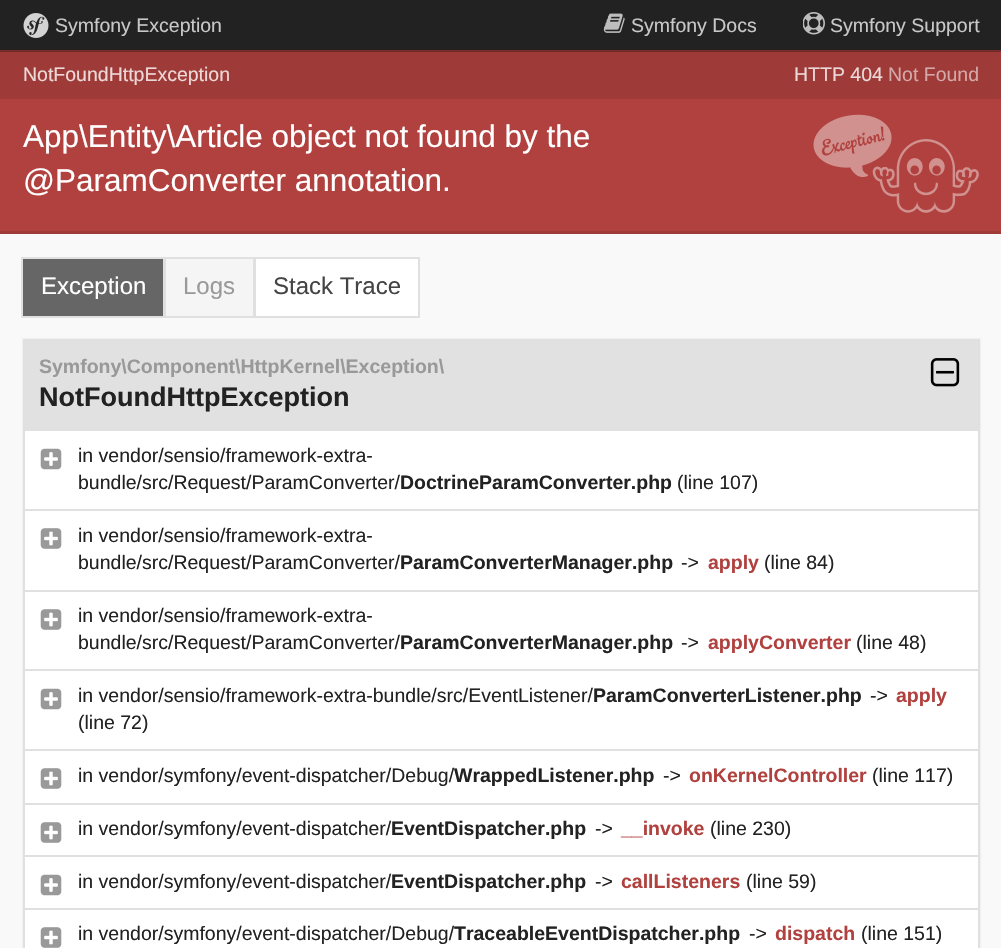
void draw(SkCanvas* canvas) {
	SkPaint paint;
	paint.setAntiAlias(true);
	canvas->clear(0xfff9f9f9);
	paint.setColor(0xff222222);
	canvas->drawRect(SkRect::MakeXYWH(0, 0, 1001, 50), paint);
	canvas->drawImageRect(SkImages::DeferredFromEncodedData(SkData::MakeFromFileName("img1.png")), SkRect::MakeXYWH(23, 13, 26, 25), SkSamplingOptions());
	SkFont f1(fontMgr->matchFamilyStyle("Liberation Sans", SkFontStyle::Normal()), 19.5);
	f1.setSubpixel(true);
	paint.setColor(0xffc8c8c8);
	canvas->drawString("Symfony Exception", 55, 32, f1, paint);
	canvas->drawImageRect(SkImages::DeferredFromEncodedData(SkData::MakeFromFileName("img2.png")), SkRect::MakeXYWH(603, 13, 22, 20), SkSamplingOptions());
	canvas->drawString("Symfony Docs", 631, 32, f1, paint);
	canvas->drawImageRect(SkImages::DeferredFromEncodedData(SkData::MakeFromFileName("img3.png")), SkRect::MakeXYWH(803, 12, 22, 23), SkSamplingOptions());
	canvas->drawString("Symfony Support", 830, 32, f1, paint);
	paint.setColor(0xffb0413e);
	canvas->drawRect(SkRect::MakeXYWH(0, 99, 1001, 132), paint);
	paint.setColor(0xff9e3b38);
	canvas->drawRect(SkRect::MakeXYWH(0, 52, 1001, 47), paint);
	paint.setColor(0xff7b2e2b);
	canvas->drawRect(SkRect::MakeXYWH(0, 50, 1001, 1), paint);
	paint.setColor(0xff6f2927);
	canvas->drawRect(SkRect::MakeXYWH(0, 51, 1001, 1), paint);
	paint.setColor(0xff9e3b38);
	canvas->drawRect(SkRect::MakeXYWH(0, 231, 1001, 3), paint);
	paint.setColor(0xffecd8d7);
	canvas->drawString("NotFoundHttpException", 23, 81, f1, paint);
	canvas->drawString("HTTP 404", 794, 81, f1, paint);
	paint.setColor(0xffd4a8a7);
	canvas->drawString("Not Found", 888, 81, f1, paint);
	SkFont f2(fontMgr->matchFamilyStyle("Liberation Sans", SkFontStyle::Normal()), 31.5);
	f2.setSubpixel(true);
	paint.setColor(0xffffffff);
	canvas->drawString("App\\Entity\\Article object not found by the", 23, 147, f2, paint);
	canvas->drawString("@ParamConverter annotation.", 23, 191, f2, paint);
	canvas->drawImageRect(SkImages::DeferredFromEncodedData(SkData::MakeFromFileName("img4.png")), SkRect::MakeXYWH(813, 114, 166, 99), SkSamplingOptions());
	paint.setColor(0xff666666);
	canvas->drawRect(SkRect::MakeXYWH(22, 258, 142, 59), paint);
	paint.setStroke(true);
	paint.setStrokeWidth(2);
	paint.setColor(0xffe0e0e0);
	canvas->drawRect(SkRect::MakeXYWH(22, 258, 142, 59), paint);
	SkFont f3(fontMgr->matchFamilyStyle("Liberation Sans", SkFontStyle::Normal()), 24);
	f3.setSubpixel(true);
	paint.setStroke(false);
	paint.setColor(0xffffffff);
	canvas->drawString("Exception", 41, 294, f3, paint);
	paint.setColor(0xfff5f5f5);
	canvas->drawRect(SkRect::MakeXYWH(165, 258, 89, 59), paint);
	paint.setStroke(true);
	paint.setColor(0xffe0e0e0);
	canvas->drawRect(SkRect::MakeXYWH(165, 258, 89, 59), paint);
	paint.setStroke(false);
	paint.setColor(0xff999999);
	canvas->drawString("Logs", 183, 294, f3, paint);
	paint.setColor(0xffffffff);
	canvas->drawRect(SkRect::MakeXYWH(255, 258, 164, 59), paint);
	paint.setStroke(true);
	paint.setColor(0xffe0e0e0);
	canvas->drawRect(SkRect::MakeXYWH(255, 258, 164, 59), paint);
	paint.setStroke(false);
	paint.setColor(0xff444444);
	canvas->drawString("Stack Trace", 273, 294, f3, paint);
	paint.setColor(0x33808080);
	paint.setMaskFilter(SkMaskFilter::MakeBlur(kNormal_SkBlurStyle, 1));
	canvas->drawRect(SkRect::MakeXYWH(23, 339, 957, 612), paint);
	paint.setMaskFilter(nullptr);
	paint.setColor(0xffffffff);
	canvas->drawRect(SkRect::MakeXYWH(25, 431, 953, 517), paint);
	paint.setStroke(true);
	paint.setColor(0xffe0e0e0);
	canvas->drawRect(SkRect::MakeXYWH(24, 340, 955, 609), paint);
	SkFont f4(fontMgr->matchFamilyStyle("Liberation Sans", SkFontStyle::Bold()), 19.5);
	f4.setSubpixel(true);
	paint.setStroke(false);
	paint.setColor(0xff999999);
	canvas->drawString("Symfony\\Component\\HttpKernel\\Exception\\", 39, 373, f4, paint);
	canvas->drawImageRect(SkImages::DeferredFromEncodedData(SkData::MakeFromFileName("img5.png")), SkRect::MakeXYWH(930, 358, 30, 29), SkSamplingOptions());
	SkFont f5(fontMgr->matchFamilyStyle("Liberation Sans", SkFontStyle::Bold()), 27);
	f5.setSubpixel(true);
	paint.setColor(0xff222222);
	canvas->drawString("NotFoundHttpException", 39, 406, f5, paint);
	canvas->drawImageRect(SkImages::DeferredFromEncodedData(SkData::MakeFromFileName("img6.png")), SkRect::MakeXYWH(40, 448, 22, 22), SkSamplingOptions());
	canvas->drawString("in vendor/sensio/framework-extra-", 78, 462, f1, paint);
	canvas->drawString("bundle/src/Request/ParamConverter/", 78, 489, f1, paint);
	canvas->drawString("DoctrineParamConverter.php", 400, 489, f4, paint);
	canvas->drawString("(line 107)", 677, 489, f1, paint);
	paint.setColor(0xffe0e0e0);
	canvas->drawRect(SkRect::MakeXYWH(24, 509, 954, 2), paint);
	canvas->drawImageRect(SkImages::DeferredFromEncodedData(SkData::MakeFromFileName("img7.png")), SkRect::MakeXYWH(40, 528, 22, 21), SkSamplingOptions());
	paint.setColor(0xff222222);
	canvas->drawString("in vendor/sensio/framework-extra-", 78, 542, f1, paint);
	canvas->drawString("bundle/src/Request/ParamConverter/", 78, 569, f1, paint);
	canvas->drawString("ParamConverterManager.php", 400, 569, f4, paint);
	canvas->drawString("->", 681, 569, f1, paint);
	paint.setColor(0xffb0413e);
	canvas->drawString("apply", 708, 569, f4, paint);
	paint.setColor(0xff222222);
	canvas->drawString("(line 84)", 764, 569, f1, paint);
	paint.setColor(0xffe0e0e0);
	canvas->drawRect(SkRect::MakeXYWH(24, 590, 954, 2), paint);
	canvas->drawImageRect(SkImages::DeferredFromEncodedData(SkData::MakeFromFileName("img7.png")), SkRect::MakeXYWH(40, 609, 22, 21), SkSamplingOptions());
	paint.setColor(0xff222222);
	canvas->drawString("in vendor/sensio/framework-extra-", 78, 622, f1, paint);
	canvas->drawString("bundle/src/Request/ParamConverter/", 78, 649, f1, paint);
	canvas->drawString("ParamConverterManager.php", 400, 649, f4, paint);
	canvas->drawString("->", 681, 649, f1, paint);
	paint.setColor(0xffb0413e);
	canvas->drawString("applyConverter", 708, 649, f4, paint);
	paint.setColor(0xff222222);
	canvas->drawString("(line 48)", 856, 649, f1, paint);
	paint.setColor(0xffe0e0e0);
	canvas->drawRect(SkRect::MakeXYWH(24, 669, 954, 2), paint);
	canvas->drawImageRect(SkImages::DeferredFromEncodedData(SkData::MakeFromFileName("img6.png")), SkRect::MakeXYWH(40, 688, 22, 22), SkSamplingOptions());
	paint.setColor(0xff222222);
	canvas->drawString("in vendor/sensio/framework-extra-bundle/src/EventListener/", 78, 702, f1, paint);
	canvas->drawString("ParamConverterListener.php", 593, 702, f4, paint);
	canvas->drawString("->", 870, 702, f1, paint);
	paint.setColor(0xffb0413e);
	canvas->drawString("apply", 896, 702, f4, paint);
	paint.setColor(0xff222222);
	canvas->drawString("(line 72)", 78, 729, f1, paint);
	paint.setColor(0xffe0e0e0);
	canvas->drawRect(SkRect::MakeXYWH(24, 749, 954, 2), paint);
	canvas->drawImageRect(SkImages::DeferredFromEncodedData(SkData::MakeFromFileName("img7.png")), SkRect::MakeXYWH(40, 768, 22, 21), SkSamplingOptions());
	paint.setColor(0xff222222);
	canvas->drawString("in vendor/symfony/event-dispatcher/Debug/", 78, 782, f1, paint);
	canvas->drawString("WrappedListener.php", 454, 782, f4, paint);
	canvas->drawString("->", 663, 782, f1, paint);
	paint.setColor(0xffb0413e);
	canvas->drawString("onKernelController", 689, 782, f4, paint);
	paint.setColor(0xff222222);
	canvas->drawString("(line 117)", 872, 782, f1, paint);
	paint.setColor(0xffe0e0e0);
	canvas->drawRect(SkRect::MakeXYWH(24, 803, 954, 2), paint);
	canvas->drawImageRect(SkImages::DeferredFromEncodedData(SkData::MakeFromFileName("img7.png")), SkRect::MakeXYWH(40, 822, 22, 21), SkSamplingOptions());
	paint.setColor(0xff222222);
	canvas->drawString("in vendor/symfony/event-dispatcher/", 78, 835, f1, paint);
	canvas->drawString("EventDispatcher.php", 391, 835, f4, paint);
	canvas->drawString("->", 595, 835, f1, paint);
	paint.setColor(0xffb0413e);
	canvas->drawString("__invoke", 621, 835, f4, paint);
	paint.setColor(0xff222222);
	canvas->drawString("(line 230)", 710, 835, f1, paint);
	paint.setColor(0xffe0e0e0);
	canvas->drawRect(SkRect::MakeXYWH(24, 855, 954, 2), paint);
	canvas->drawImageRect(SkImages::DeferredFromEncodedData(SkData::MakeFromFileName("img6.png")), SkRect::MakeXYWH(40, 874, 22, 22), SkSamplingOptions());
	paint.setColor(0xff222222);
	canvas->drawString("in vendor/symfony/event-dispatcher/", 78, 888, f1, paint);
	canvas->drawString("EventDispatcher.php", 391, 888, f4, paint);
	canvas->drawString("->", 595, 888, f1, paint);
	paint.setColor(0xffb0413e);
	canvas->drawString("callListeners", 621, 888, f4, paint);
	paint.setColor(0xff222222);
	canvas->drawString("(line 59)", 746, 888, f1, paint);
	paint.setColor(0xffe0e0e0);
	canvas->drawRect(SkRect::MakeXYWH(24, 908, 954, 2), paint);
	canvas->drawImageRect(SkImages::DeferredFromEncodedData(SkData::MakeFromFileName("img7.png")), SkRect::MakeXYWH(40, 927, 22, 21), SkSamplingOptions());
	paint.setColor(0xff222222);
	canvas->drawString("in vendor/symfony/event-dispatcher/Debug/", 78, 940, f1, paint);
	canvas->drawString("TraceableEventDispatcher.php", 454, 940, f4, paint);
	canvas->drawString("->", 749, 940, f1, paint);
	paint.setColor(0xffb0413e);
	canvas->drawString("dispatch", 775, 940, f4, paint);
	paint.setColor(0xff222222);
	canvas->drawString("(line 151)", 861, 940, f1, paint);
}
